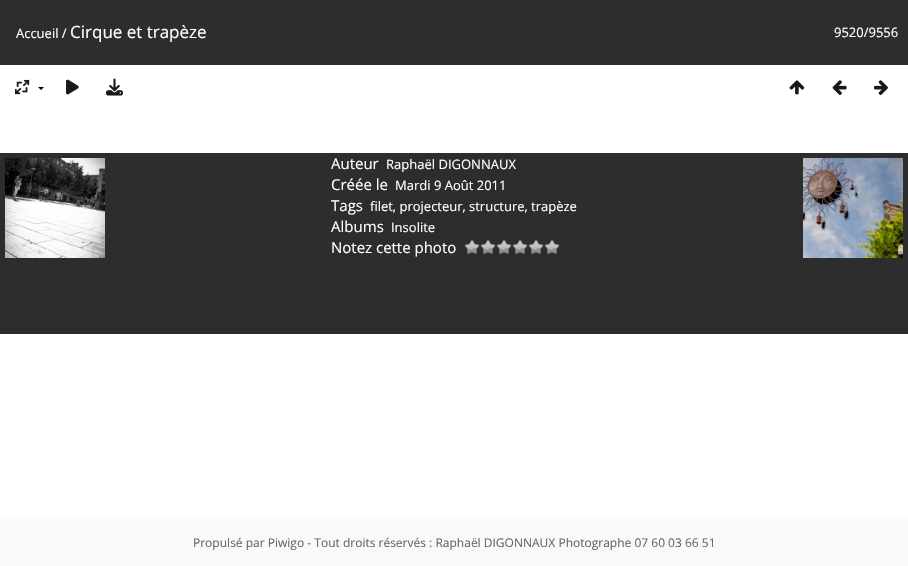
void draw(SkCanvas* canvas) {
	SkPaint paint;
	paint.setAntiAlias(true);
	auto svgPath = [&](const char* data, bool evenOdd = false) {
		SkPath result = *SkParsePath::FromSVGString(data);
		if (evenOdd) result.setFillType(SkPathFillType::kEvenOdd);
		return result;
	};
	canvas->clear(0xffffffff);
	paint.setColor(0xff2d2d2d);
	canvas->drawRect(SkRect::MakeXYWH(0, 0, 908, 65), paint);
	SkFont f1(fontMgr->matchFamilyStyle("Open Sans", SkFontStyle::Normal()), 13);
	f1.setSubpixel(true);
	paint.setColor(0xffffffff);
	canvas->drawString("Accueil /", 16, 38, f1, paint);
	SkFont f2(fontMgr->matchFamilyStyle("Open Sans", SkFontStyle::Normal()), 17);
	f2.setSubpixel(true);
	canvas->drawString("Cirque et trapèze", 70, 38, f2, paint);
	canvas->drawString("9520/9556", 834, 37, f1, paint);
	canvas->drawImageRect(SkImages::DeferredFromEncodedData(SkData::MakeFromFileName("img1.png")), SkRect::MakeXYWH(15, 79, 15, 16), SkSamplingOptions());
	paint.setColor(0xff000000);
	canvas->drawPath(svgPath("M38 87H44L41 90Z"), paint);
	canvas->drawImageRect(SkImages::DeferredFromEncodedData(SkData::MakeFromFileName("img2.png")), SkRect::MakeXYWH(66, 79, 13, 16), SkSamplingOptions());
	canvas->drawImageRect(SkImages::DeferredFromEncodedData(SkData::MakeFromFileName("img3.png")), SkRect::MakeXYWH(106, 78, 17, 18), SkSamplingOptions());
	canvas->drawImageRect(SkImages::DeferredFromEncodedData(SkData::MakeFromFileName("img4.png")), SkRect::MakeXYWH(789, 80, 16, 15), SkSamplingOptions());
	canvas->drawImageRect(SkImages::DeferredFromEncodedData(SkData::MakeFromFileName("img5.png")), SkRect::MakeXYWH(832, 80, 15, 15), SkSamplingOptions());
	canvas->drawImageRect(SkImages::DeferredFromEncodedData(SkData::MakeFromFileName("img6.png")), SkRect::MakeXYWH(874, 80, 14, 15), SkSamplingOptions());
	paint.setColor(0xff2d2d2d);
	canvas->drawRect(SkRect::MakeXYWH(0, 153, 908, 181), paint);
	canvas->drawImageRect(SkImages::DeferredFromEncodedData(SkData::MakeFromFileName("img7.png")), SkRect::MakeXYWH(5, 158, 100, 100), SkSamplingOptions());
	canvas->drawImageRect(SkImages::DeferredFromEncodedData(SkData::MakeFromFileName("img8.png")), SkRect::MakeXYWH(803, 158, 100, 100), SkSamplingOptions());
	SkFont f3(fontMgr->matchFamilyStyle("Open Sans", SkFontStyle::Normal()), 15);
	f3.setSubpixel(true);
	paint.setColor(0xffffffff);
	canvas->drawString("Auteur", 331, 169, f3, paint);
	canvas->drawString("Raphaël DIGONNAUX", 386, 169, f1, paint);
	canvas->drawString("Créée le", 331, 190, f3, paint);
	canvas->drawString("Mardi 9 Août 2011", 395, 190, f1, paint);
	canvas->drawString("Tags", 331, 211, f3, paint);
	canvas->drawString("filet, projecteur, structure, trapèze", 370, 211, f1, paint);
	canvas->drawString("Albums", 331, 232, f3, paint);
	canvas->drawString("Insolite", 391, 232, f1, paint);
	canvas->drawString("Notez cette photo", 331, 253, f3, paint);
	canvas->drawImageRect(SkImages::DeferredFromEncodedData(SkData::MakeFromFileName("img9.png")), SkRect::MakeXYWH(464, 240, 16, 14), SkSamplingOptions());
	canvas->drawImageRect(SkImages::DeferredFromEncodedData(SkData::MakeFromFileName("img9.png")), SkRect::MakeXYWH(480, 240, 16, 14), SkSamplingOptions());
	canvas->drawImageRect(SkImages::DeferredFromEncodedData(SkData::MakeFromFileName("img9.png")), SkRect::MakeXYWH(496, 240, 16, 14), SkSamplingOptions());
	canvas->drawImageRect(SkImages::DeferredFromEncodedData(SkData::MakeFromFileName("img9.png")), SkRect::MakeXYWH(512, 240, 16, 14), SkSamplingOptions());
	canvas->drawImageRect(SkImages::DeferredFromEncodedData(SkData::MakeFromFileName("img9.png")), SkRect::MakeXYWH(528, 240, 16, 14), SkSamplingOptions());
	canvas->drawImageRect(SkImages::DeferredFromEncodedData(SkData::MakeFromFileName("img9.png")), SkRect::MakeXYWH(544, 240, 16, 14), SkSamplingOptions());
	paint.setColor(0xfff9f9f9);
	canvas->drawRect(SkRect::MakeXYWH(0, 519, 908, 47), paint);
	SkFont f4(fontMgr->matchFamilyStyle("Open Sans", SkFontStyle::Normal()), 12);
	f4.setSubpixel(true);
	paint.setColor(0xff666666);
	canvas->drawString("Propulsé par Piwigo - Tout droits réservés : Raphaël DIGONNAUX Photographe 07 60 03 66 51", 193, 547, f4, paint);
}
